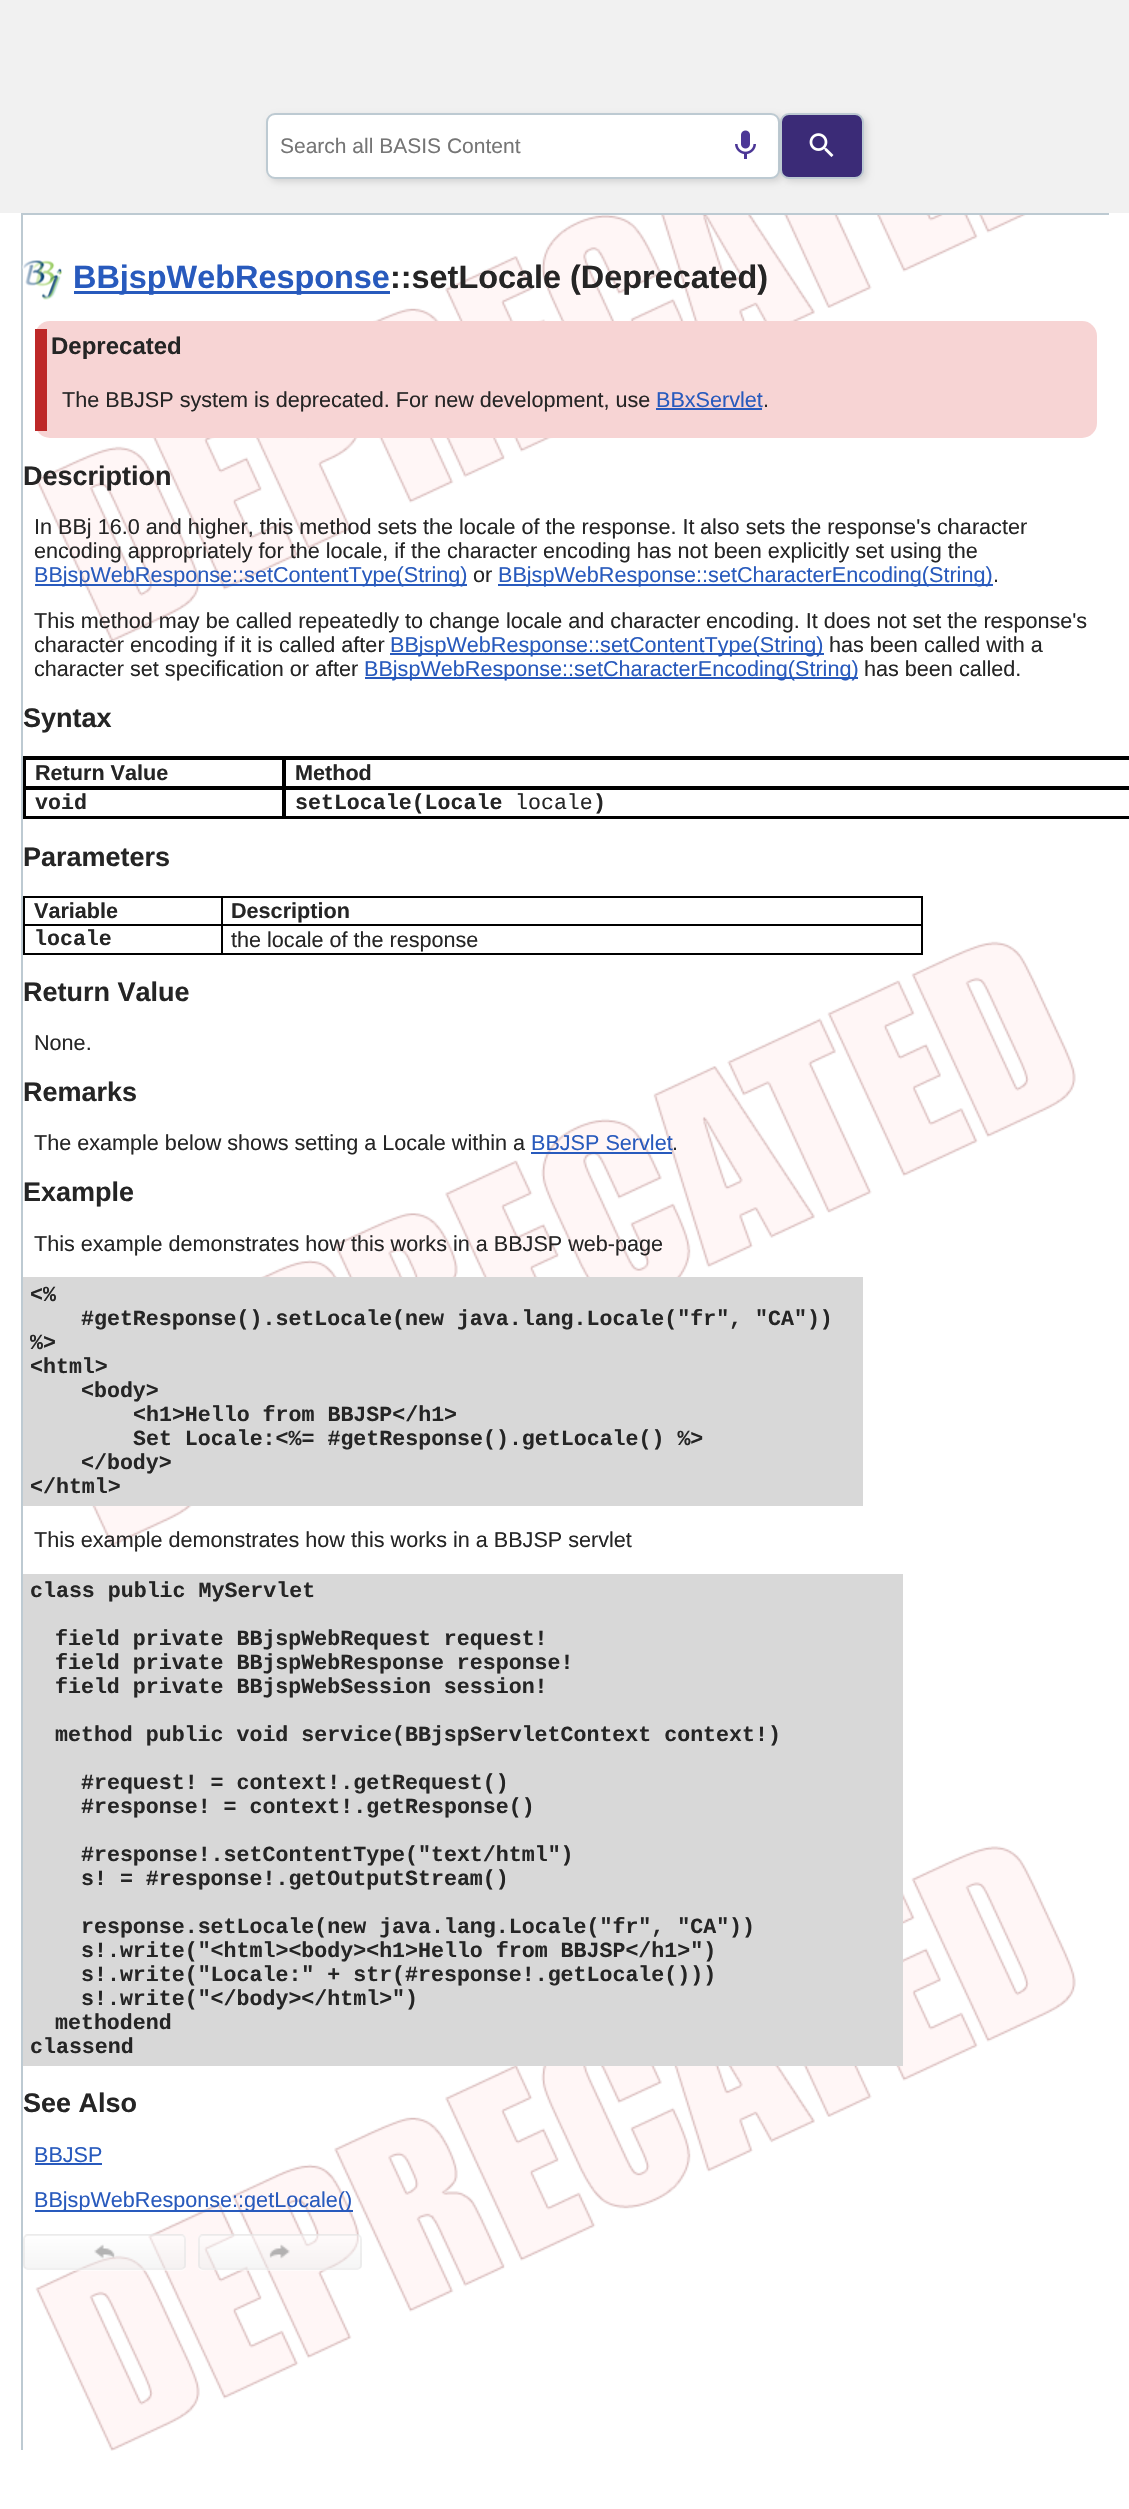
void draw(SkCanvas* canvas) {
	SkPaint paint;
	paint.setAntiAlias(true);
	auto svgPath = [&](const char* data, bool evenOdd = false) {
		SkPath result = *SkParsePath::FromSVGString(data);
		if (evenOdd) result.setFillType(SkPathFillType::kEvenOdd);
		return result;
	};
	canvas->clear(0xffffffff);
	canvas->drawImageRect(SkImages::DeferredFromEncodedData(SkData::MakeFromFileName("img1.png")), SkRect::MakeXYWH(35, 215, 1041, 2236), SkSamplingOptions());
	paint.setColor(0xfff1f1f1);
	canvas->drawRect(SkRect::MakeXYWH(0, 0, 1129, 213), paint);
	paint.setColor(0x1f000000);
	paint.setMaskFilter(SkMaskFilter::MakeBlur(kNormal_SkBlurStyle, 3));
	canvas->drawRoundRect(SkRect::MakeXYWH(269, 116, 514, 66), 9, 9, paint);
	paint.setMaskFilter(nullptr);
	paint.setColor(0xffffffff);
	canvas->drawRoundRect(SkRect::MakeXYWH(267, 114, 512, 64), 8, 8, paint);
	paint.setStroke(true);
	paint.setStrokeWidth(2);
	paint.setColor(0xffbdcad2);
	canvas->drawRoundRect(SkRect::MakeXYWH(267, 114, 512, 64), 8, 8, paint);
	SkFont f1(fontMgr->matchFamilyStyle("Liberation Sans", SkFontStyle::Normal()), 21);
	f1.setSubpixel(true);
	paint.setStroke(false);
	paint.setColor(0xff757575);
	canvas->drawString("Search all BASIS Content", 280, 153, f1, paint);
	canvas->drawImageRect(SkImages::DeferredFromEncodedData(SkData::MakeFromFileName("img2.png")), SkRect::MakeXYWH(735, 130, 21, 29), SkSamplingOptions());
	paint.setColor(0x1f000000);
	paint.setMaskFilter(SkMaskFilter::MakeBlur(kNormal_SkBlurStyle, 3));
	canvas->drawRoundRect(SkRect::MakeXYWH(783, 116, 84, 66), 9, 9, paint);
	paint.setMaskFilter(nullptr);
	paint.setColor(0xff3b2b77);
	canvas->drawRoundRect(SkRect::MakeXYWH(781, 114, 82, 64), 8, 8, paint);
	paint.setStroke(true);
	paint.setColor(0xffbdcad2);
	canvas->drawRoundRect(SkRect::MakeXYWH(781, 114, 82, 64), 8, 8, paint);
	canvas->drawImageRect(SkImages::DeferredFromEncodedData(SkData::MakeFromFileName("img3.png")), SkRect::MakeXYWH(809, 133, 25, 24), SkSamplingOptions());
	paint.setStroke(false);
	canvas->drawRect(SkRect::MakeXYWH(21, 213, 1088, 2), paint);
	canvas->drawRect(SkRect::MakeXYWH(21, 213, 2, 2237), paint);
	canvas->drawImageRect(SkImages::DeferredFromEncodedData(SkData::MakeFromFileName("img4.png")), SkRect::MakeXYWH(22, 260, 41, 40), SkSamplingOptions());
	paint.setColor(0xff285abd);
	canvas->drawRect(SkRect::MakeXYWH(74, 291, 316, 3), paint);
	SkFont f2(fontMgr->matchFamilyStyle("Liberation Sans", SkFontStyle::Bold()), 32.4);
	f2.setSubpixel(true);
	canvas->drawString("BBjspWebResponse", 73, 288, f2, paint);
	paint.setColor(0xff252525);
	canvas->drawString("::setLocale (Deprecated)", 390, 288, f2, paint);
	paint.setColor(0xfff7d4d4);
	canvas->drawRoundRect(SkRect::MakeXYWH(35, 321, 1062, 117), 15, 15, paint);
	paint.setColor(0xffbd2828);
	canvas->drawRect(SkRect::MakeXYWH(35, 329, 12, 102), paint);
	SkFont f3(fontMgr->matchFamilyStyle("Liberation Sans", SkFontStyle::Bold()), 24);
	f3.setSubpixel(true);
	paint.setColor(0xff252525);
	canvas->drawString("Deprecated", 51, 354, f3, paint);
	SkFont f4(fontMgr->matchFamilyStyle("Liberation Sans", SkFontStyle::Normal()), 21.6);
	f4.setSubpixel(true);
	canvas->drawString("The BBJSP system is deprecated. For new development, use", 62, 407, f4, paint);
	paint.setColor(0xff285abd);
	canvas->drawString("BBxServlet", 656, 407, f4, paint);
	canvas->drawRect(SkRect::MakeXYWH(656, 408, 106, 2), paint);
	paint.setColor(0xff252525);
	canvas->drawString(".", 763, 407, f4, paint);
	SkFont f5(fontMgr->matchFamilyStyle("Liberation Sans", SkFontStyle::Bold()), 27);
	f5.setSubpixel(true);
	canvas->drawString("Description", 23, 485, f5, paint);
	canvas->drawString("In BBj 16.0 and higher, this method sets the locale of the response. It", 34, 534, f4, paint);
	canvas->drawString("also sets the response's character", 700, 534, f4, paint);
	canvas->drawString("encoding appropriately for the locale, if the character encoding has not been explicitly set using the", 34, 558, f4, paint);
	paint.setColor(0xff285abd);
	canvas->drawRect(SkRect::MakeXYWH(35, 584, 432, 2), paint);
	canvas->drawString("BBjspWebResponse::setContentType(String)", 34, 582, f4, paint);
	paint.setColor(0xff252525);
	canvas->drawString("or", 473, 582, f4, paint);
	paint.setColor(0xff285abd);
	canvas->drawRect(SkRect::MakeXYWH(498, 584, 495, 2), paint);
	canvas->drawString("BBjspWebResponse::setCharacterEncoding(String)", 498, 582, f4, paint);
	paint.setColor(0xff252525);
	canvas->drawString(".", 993, 582, f4, paint);
	canvas->drawString("This method may be called repeatedly to change locale and character", 34, 628, f4, paint);
	canvas->drawString("encoding. It does not set the response's", 706, 628, f4, paint);
	canvas->drawString("character encoding if it is called after", 34, 652, f4, paint);
	paint.setColor(0xff285abd);
	canvas->drawRect(SkRect::MakeXYWH(390, 653, 434, 2), paint);
	canvas->drawString("BBjspWebResponse::setContentType(String)", 390, 652, f4, paint);
	paint.setColor(0xff252525);
	canvas->drawString("has been called with a", 829, 652, f4, paint);
	canvas->drawString("character set specification or after", 34, 676, f4, paint);
	paint.setColor(0xff285abd);
	canvas->drawRect(SkRect::MakeXYWH(365, 677, 493, 2), paint);
	canvas->drawString("BBjspWebResponse::setCharacterEncoding(String)", 364, 676, f4, paint);
	paint.setColor(0xff252525);
	canvas->drawString("has been called.", 864, 676, f4, paint);
	canvas->drawString("Syntax", 23, 727, f5, paint);
	paint.setStroke(true);
	paint.setColor(0xff000000);
	canvas->drawRect(SkRect::MakeXYWH(24, 757, 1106, 61), paint);
	canvas->drawRect(SkRect::MakeXYWH(25, 759, 258, 28), paint);
	SkFont f6(fontMgr->matchFamilyStyle("Liberation Sans", SkFontStyle::Bold()), 21.6);
	f6.setSubpixel(true);
	paint.setStroke(false);
	paint.setColor(0xff252525);
	canvas->drawString("Return Value", 35, 780, f6, paint);
	paint.setStroke(true);
	paint.setColor(0xff000000);
	canvas->drawRect(SkRect::MakeXYWH(285, 759, 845, 28), paint);
	paint.setStroke(false);
	paint.setColor(0xff252525);
	canvas->drawString("Method", 295, 780, f6, paint);
	paint.setStroke(true);
	paint.setColor(0xff000000);
	canvas->drawRect(SkRect::MakeXYWH(25, 789, 258, 28), paint);
	SkFont f7(fontMgr->matchFamilyStyle("Liberation Mono", SkFontStyle::Bold()), 21.6);
	f7.setSubpixel(true);
	paint.setStroke(false);
	paint.setColor(0xff252525);
	canvas->drawString("void", 35, 809, f7, paint);
	paint.setStroke(true);
	paint.setColor(0xff000000);
	canvas->drawRect(SkRect::MakeXYWH(285, 789, 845, 28), paint);
	paint.setStroke(false);
	paint.setColor(0xff252525);
	canvas->drawString("setLocale(Locale", 295, 809, f7, paint);
	SkFont f8(fontMgr->matchFamilyStyle("Liberation Mono", SkFontStyle::Normal()), 21.6);
	f8.setSubpixel(true);
	canvas->drawString("locale", 515, 809, f8, paint);
	canvas->drawString(")", 593, 809, f7, paint);
	canvas->drawString("Parameters", 23, 866, f5, paint);
	paint.setColor(0xff000000);
	canvas->drawRect(SkRect::MakeXYWH(23, 896, 900, 2), paint);
	canvas->drawRect(SkRect::MakeXYWH(921, 896, 2, 58), paint);
	canvas->drawRect(SkRect::MakeXYWH(23, 953, 900, 2), paint);
	canvas->drawRect(SkRect::MakeXYWH(23, 896, 2, 58), paint);
	paint.setColor(0xff252525);
	canvas->drawString("Variable", 34, 918, f6, paint);
	paint.setColor(0xff000000);
	canvas->drawRect(SkRect::MakeXYWH(221, 924, 702, 2), paint);
	canvas->drawRect(SkRect::MakeXYWH(221, 924, 2, 30), paint);
	canvas->drawRect(SkRect::MakeXYWH(23, 924, 199, 2), paint);
	canvas->drawRect(SkRect::MakeXYWH(221, 896, 2, 30), paint);
	paint.setColor(0xff252525);
	canvas->drawString("Description", 231, 918, f6, paint);
	canvas->drawString("locale", 34, 945, f7, paint);
	canvas->drawString("the locale of the response", 231, 947, f4, paint);
	canvas->drawString("Return Value", 23, 1001, f5, paint);
	canvas->drawString("None.", 34, 1050, f4, paint);
	canvas->drawString("Remarks", 23, 1101, f5, paint);
	canvas->drawString("The example below shows setting a Locale within a", 34, 1150, f4, paint);
	paint.setColor(0xff285abd);
	canvas->drawString("BBJSP Servlet", 531, 1150, f4, paint);
	canvas->drawRect(SkRect::MakeXYWH(531, 1152, 141, 2), paint);
	paint.setColor(0xff252525);
	canvas->drawString(".", 672, 1150, f4, paint);
	canvas->drawString("Example", 23, 1201, f5, paint);
	canvas->drawString("This example demonstrates how this works in a BBJSP web-page", 34, 1251, f4, paint);
	paint.setColor(0xffd8d8d8);
	canvas->drawRect(SkRect::MakeXYWH(23, 1277, 840, 229), paint);
	paint.setColor(0xff252525);
	canvas->drawString("<%", 30, 1301, f7, paint);
	canvas->drawString("#getResponse().setLocale(new java.lang.Locale(\"fr\", \"CA\"))", 81, 1325, f7, paint);
	canvas->drawString("%>", 30, 1349, f7, paint);
	canvas->drawString("<html>", 30, 1373, f7, paint);
	canvas->drawString("<body>", 81, 1397, f7, paint);
	canvas->drawString("<h1>Hello from BBJSP</h1>", 133, 1421, f7, paint);
	canvas->drawString("Set Locale:<%= #getResponse().getLocale() %>", 133, 1445, f7, paint);
	canvas->drawString("</body>", 81, 1469, f7, paint);
	canvas->drawString("</html>", 30, 1493, f7, paint);
	canvas->drawString("This example demonstrates how this works in a BBJSP servlet", 34, 1547, f4, paint);
	paint.setColor(0xffd8d8d8);
	canvas->drawRect(SkRect::MakeXYWH(23, 1574, 880, 492), paint);
	paint.setColor(0xff252525);
	canvas->drawString("class public MyServlet", 30, 1597, f7, paint);
	canvas->drawString("field private BBjspWebRequest request!", 55, 1645, f7, paint);
	canvas->drawString("field private BBjspWebResponse response!", 55, 1669, f7, paint);
	canvas->drawString("field private BBjspWebSession session!", 55, 1693, f7, paint);
	canvas->drawString("method public void service(BBjspServletContext context!)", 55, 1741, f7, paint);
	canvas->drawString("#request! = context!.getRequest()", 81, 1789, f7, paint);
	canvas->drawString("#response! = context!.getResponse()", 81, 1813, f7, paint);
	canvas->drawString("#response!.setContentType(\"text/html\")", 81, 1861, f7, paint);
	canvas->drawString("s! = #response!.getOutputStream()", 81, 1885, f7, paint);
	canvas->drawString("response.setLocale(new java.lang.Locale(\"fr\", \"CA\"))", 81, 1933, f7, paint);
	canvas->drawString("s!.write(\"<html><body><h1>Hello from BBJSP</h1>\")", 81, 1957, f7, paint);
	canvas->drawString("s!.write(\"Locale:\" + str(#response!.getLocale()))", 81, 1981, f7, paint);
	canvas->drawString("s!.write(\"</body></html>\")", 81, 2005, f7, paint);
	canvas->drawString("methodend", 55, 2029, f7, paint);
	canvas->drawString("classend", 30, 2053, f7, paint);
	canvas->drawString("See Also", 23, 2112, f5, paint);
	paint.setColor(0xff285abd);
	canvas->drawString("BBJSP", 34, 2162, f4, paint);
	canvas->drawRect(SkRect::MakeXYWH(35, 2163, 67, 2), paint);
	canvas->drawRect(SkRect::MakeXYWH(35, 2210, 318, 2), paint);
	canvas->drawString("BBjspWebResponse::getLocale()", 34, 2207, f4, paint);
	paint.setColor(0x80ffffff);
	canvas->drawPath(svgPath("M23 2267C24 2269 26 2271 28 2271H181C184 2271 186 2269 186 2266V2265C186 2267 184 2270 182 2270H27C25 2270 24 2269 23 2267Z"), paint);
	canvas->save();
	canvas->clipPath(svgPath("M28 2234H181C184 2234 186 2236 186 2239V2265C186 2268 184 2270 181 2270H28C25 2270 23 2268 23 2265V2239C23 2236 25 2234 28 2234Z"), true);
	{
		const SkColor colors[] = {0x80ffffff, 0x80ececec};
		const float stops[] = {0, 1};
		const SkPoint ends[] = {{104, 2202}, {104, 2235}};
		paint.setShader(SkGradientShader::MakeLinear(ends, colors, stops, 2, SkTileMode::kClamp));
		paint.setAlpha(255);
	}
	canvas->drawRect(SkRect::MakeXYWH(23, 2234, 163, 1), paint);
	{
		const SkColor colors[] = {0x80ffffff, 0x80ececec};
		const float stops[] = {0, 1};
		const SkPoint ends[] = {{104, 2235}, {104, 2268}};
		paint.setShader(SkGradientShader::MakeLinear(ends, colors, stops, 2, SkTileMode::kClamp));
		paint.setAlpha(255);
	}
	canvas->drawRect(SkRect::MakeXYWH(23, 2235, 163, 33), paint);
	{
		const SkColor colors[] = {0x80ffffff, 0x80ececec};
		const float stops[] = {0, 1};
		const SkPoint ends[] = {{104, 2268}, {104, 2301}};
		paint.setShader(SkGradientShader::MakeLinear(ends, colors, stops, 2, SkTileMode::kClamp));
		paint.setAlpha(255);
	}
	canvas->drawRect(SkRect::MakeXYWH(23, 2268, 163, 2), paint);
	canvas->restore();
	paint.setStroke(true);
	paint.setShader(nullptr);
	paint.setColor(0x80e1e1e1);
	canvas->drawRoundRect(SkRect::MakeXYWH(24, 2235, 161, 34), 4, 4, paint);
	canvas->drawImageRect(SkImages::DeferredFromEncodedData(SkData::MakeFromFileName("img5.png")), SkRect::MakeXYWH(94, 2244, 21, 15), SkSamplingOptions());
	paint.setStroke(false);
	paint.setColor(0x80ffffff);
	canvas->drawPath(svgPath("M198 2265V2266C198 2269 200 2271 203 2271H357C360 2271 362 2269 362 2266V2240L361 2238L362 2260C362 2264 362 2269 357 2270H228C219 2270 198 2274 198 2265Z"), paint);
	canvas->save();
	canvas->clipPath(svgPath("M203 2234H357C360 2234 362 2236 362 2239V2265C362 2268 360 2270 357 2270H203C200 2270 198 2268 198 2265V2239C198 2236 200 2234 203 2234Z"), true);
	{
		const SkColor colors[] = {0x80ffffff, 0x80ececec};
		const float stops[] = {0, 1};
		const SkPoint ends[] = {{280, 2202}, {280, 2235}};
		paint.setShader(SkGradientShader::MakeLinear(ends, colors, stops, 2, SkTileMode::kClamp));
		paint.setAlpha(255);
	}
	canvas->drawRect(SkRect::MakeXYWH(198, 2234, 164, 1), paint);
	{
		const SkColor colors[] = {0x80ffffff, 0x80ececec};
		const float stops[] = {0, 1};
		const SkPoint ends[] = {{280, 2235}, {280, 2268}};
		paint.setShader(SkGradientShader::MakeLinear(ends, colors, stops, 2, SkTileMode::kClamp));
		paint.setAlpha(255);
	}
	canvas->drawRect(SkRect::MakeXYWH(198, 2235, 164, 33), paint);
	{
		const SkColor colors[] = {0x80ffffff, 0x80ececec};
		const float stops[] = {0, 1};
		const SkPoint ends[] = {{280, 2268}, {280, 2301}};
		paint.setShader(SkGradientShader::MakeLinear(ends, colors, stops, 2, SkTileMode::kClamp));
		paint.setAlpha(255);
	}
	canvas->drawRect(SkRect::MakeXYWH(198, 2268, 164, 2), paint);
	canvas->restore();
	paint.setStroke(true);
	paint.setShader(nullptr);
	paint.setColor(0x80e1e1e1);
	canvas->drawRoundRect(SkRect::MakeXYWH(199, 2235, 162, 34), 4, 4, paint);
	canvas->drawImageRect(SkImages::DeferredFromEncodedData(SkData::MakeFromFileName("img6.png")), SkRect::MakeXYWH(269, 2244, 21, 15), SkSamplingOptions());
}
